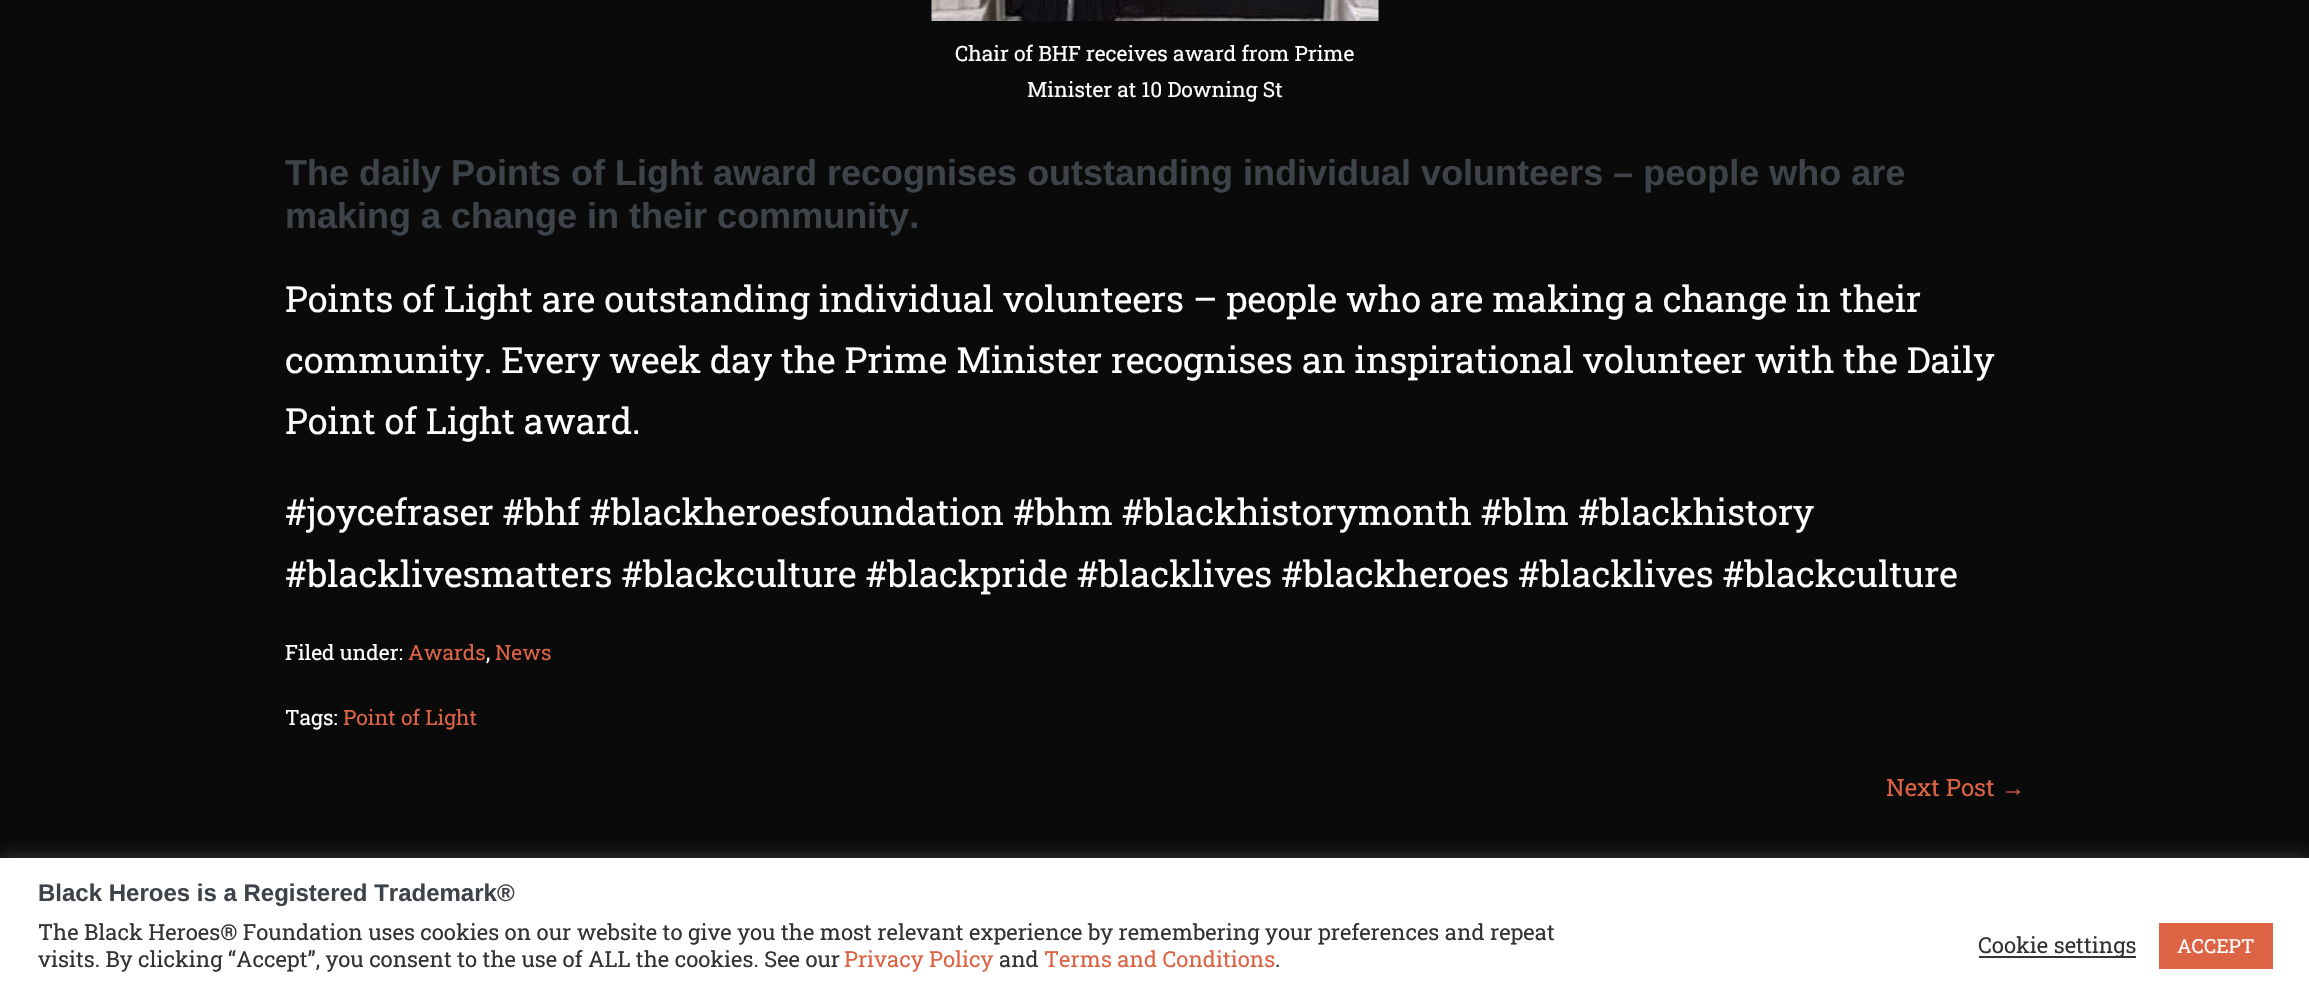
void draw(SkCanvas* canvas) {
	SkPaint paint;
	paint.setAntiAlias(true);
	canvas->clear(0xff0a0a0a);
	canvas->drawImageRect(SkImages::DeferredFromEncodedData(SkData::MakeFromFileName("img1.png")), SkRect::MakeXYWH(931, 0, 448, 21), SkSamplingOptions());
	SkFont f1(fontMgr->matchFamilyStyle("Roboto Slab", SkFontStyle::Normal()), 21);
	f1.setSubpixel(true);
	paint.setColor(0xffffffff);
	canvas->drawString("Chair of BHF receives award from Prime", 955, 61, f1, paint);
	canvas->drawString("Minister at 10 Downing St", 1027, 97, f1, paint);
	SkFont f2(fontMgr->matchFamilyStyle("Liberation Sans", SkFontStyle::Bold()), 36);
	f2.setSubpixel(true);
	paint.setColor(0xff3e4349);
	canvas->drawString("The daily Points of Light award recognises outstanding individual volunteers – people who are", 285, 185, f2, paint);
	canvas->drawString("making a change in their community.", 285, 228, f2, paint);
	SkFont f3(fontMgr->matchFamilyStyle("Roboto Slab", SkFontStyle::Normal()), 36);
	f3.setSubpixel(true);
	paint.setColor(0xffffffff);
	canvas->drawString("Points of Light are outstanding individual volunteers – people who are making a change in their", 285, 312, f3, paint);
	canvas->drawString("community. Every week day the Prime Minister recognises an inspirational volunteer with the Daily", 285, 373, f3, paint);
	canvas->drawString("Point of Light award.", 285, 434, f3, paint);
	canvas->drawString("#joycefraser #bhf #blackheroesfoundation #bhm #blackhistorymonth #blm #blackhistory", 285, 525, f3, paint);
	canvas->drawString("#blacklivesmatters #blackculture #blackpride #blacklives #blackheroes #blacklives #blackculture", 285, 587, f3, paint);
	canvas->drawString("Filed under:", 285, 660, f1, paint);
	paint.setColor(0xffdc6344);
	canvas->drawString("Awards", 408, 660, f1, paint);
	paint.setColor(0xffffffff);
	canvas->drawString(",", 486, 660, f1, paint);
	paint.setColor(0xffdc6344);
	canvas->drawString("News", 495, 660, f1, paint);
	paint.setColor(0xffffffff);
	canvas->drawString("Tags:", 285, 725, f1, paint);
	paint.setColor(0xffdc6344);
	canvas->drawString("Point of Light", 343, 725, f1, paint);
	SkFont f4(fontMgr->matchFamilyStyle("Roboto Slab", SkFontStyle::Normal()), 24);
	f4.setSubpixel(true);
	canvas->drawString("Next Post", 1886, 796, f4, paint);
	SkFont f5(fontMgr->matchFamilyStyle("Liberation Serif", SkFontStyle::Normal()), 24);
	f5.setSubpixel(true);
	canvas->drawString("→", 2001, 796, f5, paint);
	paint.setColor(0x4dacabab);
	paint.setMaskFilter(SkMaskFilter::MakeBlur(kNormal_SkBlurStyle, 7.5));
	canvas->drawRect(SkRect::MakeXYWH(0, 857, 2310, 139), paint);
	paint.setMaskFilter(nullptr);
	paint.setColor(0xffffffff);
	canvas->drawRect(SkRect::MakeXYWH(0, 858, 2309, 139), paint);
	SkFont f6(fontMgr->matchFamilyStyle("Liberation Sans", SkFontStyle::Bold()), 24);
	f6.setSubpixel(true);
	paint.setColor(0xff3e4349);
	canvas->drawString("Black Heroes is a Registered Trademark®", 38, 901, f6, paint);
	SkFont f7(fontMgr->matchFamilyStyle("Roboto Slab", SkFontStyle::Normal()), 22);
	f7.setSubpixel(true);
	paint.setColor(0xff333333);
	canvas->drawString("The Black Heroes® Foundation uses cookies on our website to give you the most relevant experience by remembering your preferences and repeat", 38, 940, f7, paint);
	canvas->drawString("visits. By clicking “Accept”, you consent to the use of ALL the cookies. See our", 38, 967, f7, paint);
	paint.setColor(0xffdc6344);
	canvas->drawString("Privacy Policy", 844, 967, f7, paint);
	paint.setColor(0xff333333);
	canvas->drawString("and", 999, 967, f7, paint);
	paint.setColor(0xffdc6344);
	canvas->drawString("Terms and Conditions", 1044, 967, f7, paint);
	paint.setColor(0xff333333);
	canvas->drawString(".", 1275, 967, f7, paint);
	canvas->drawRect(SkRect::MakeXYWH(1979, 956, 157, 2), paint);
	canvas->drawString("Cookie settings", 1978, 953, f7, paint);
	paint.setColor(0xffdc6344);
	canvas->drawRect(SkRect::MakeXYWH(2159, 923, 114, 46), paint);
	SkFont f8(fontMgr->matchFamilyStyle("Roboto Slab", SkFontStyle::Normal()), 19.5);
	f8.setSubpixel(true);
	paint.setColor(0xffffffff);
	canvas->drawString("ACCEPT", 2177, 953, f8, paint);
}
